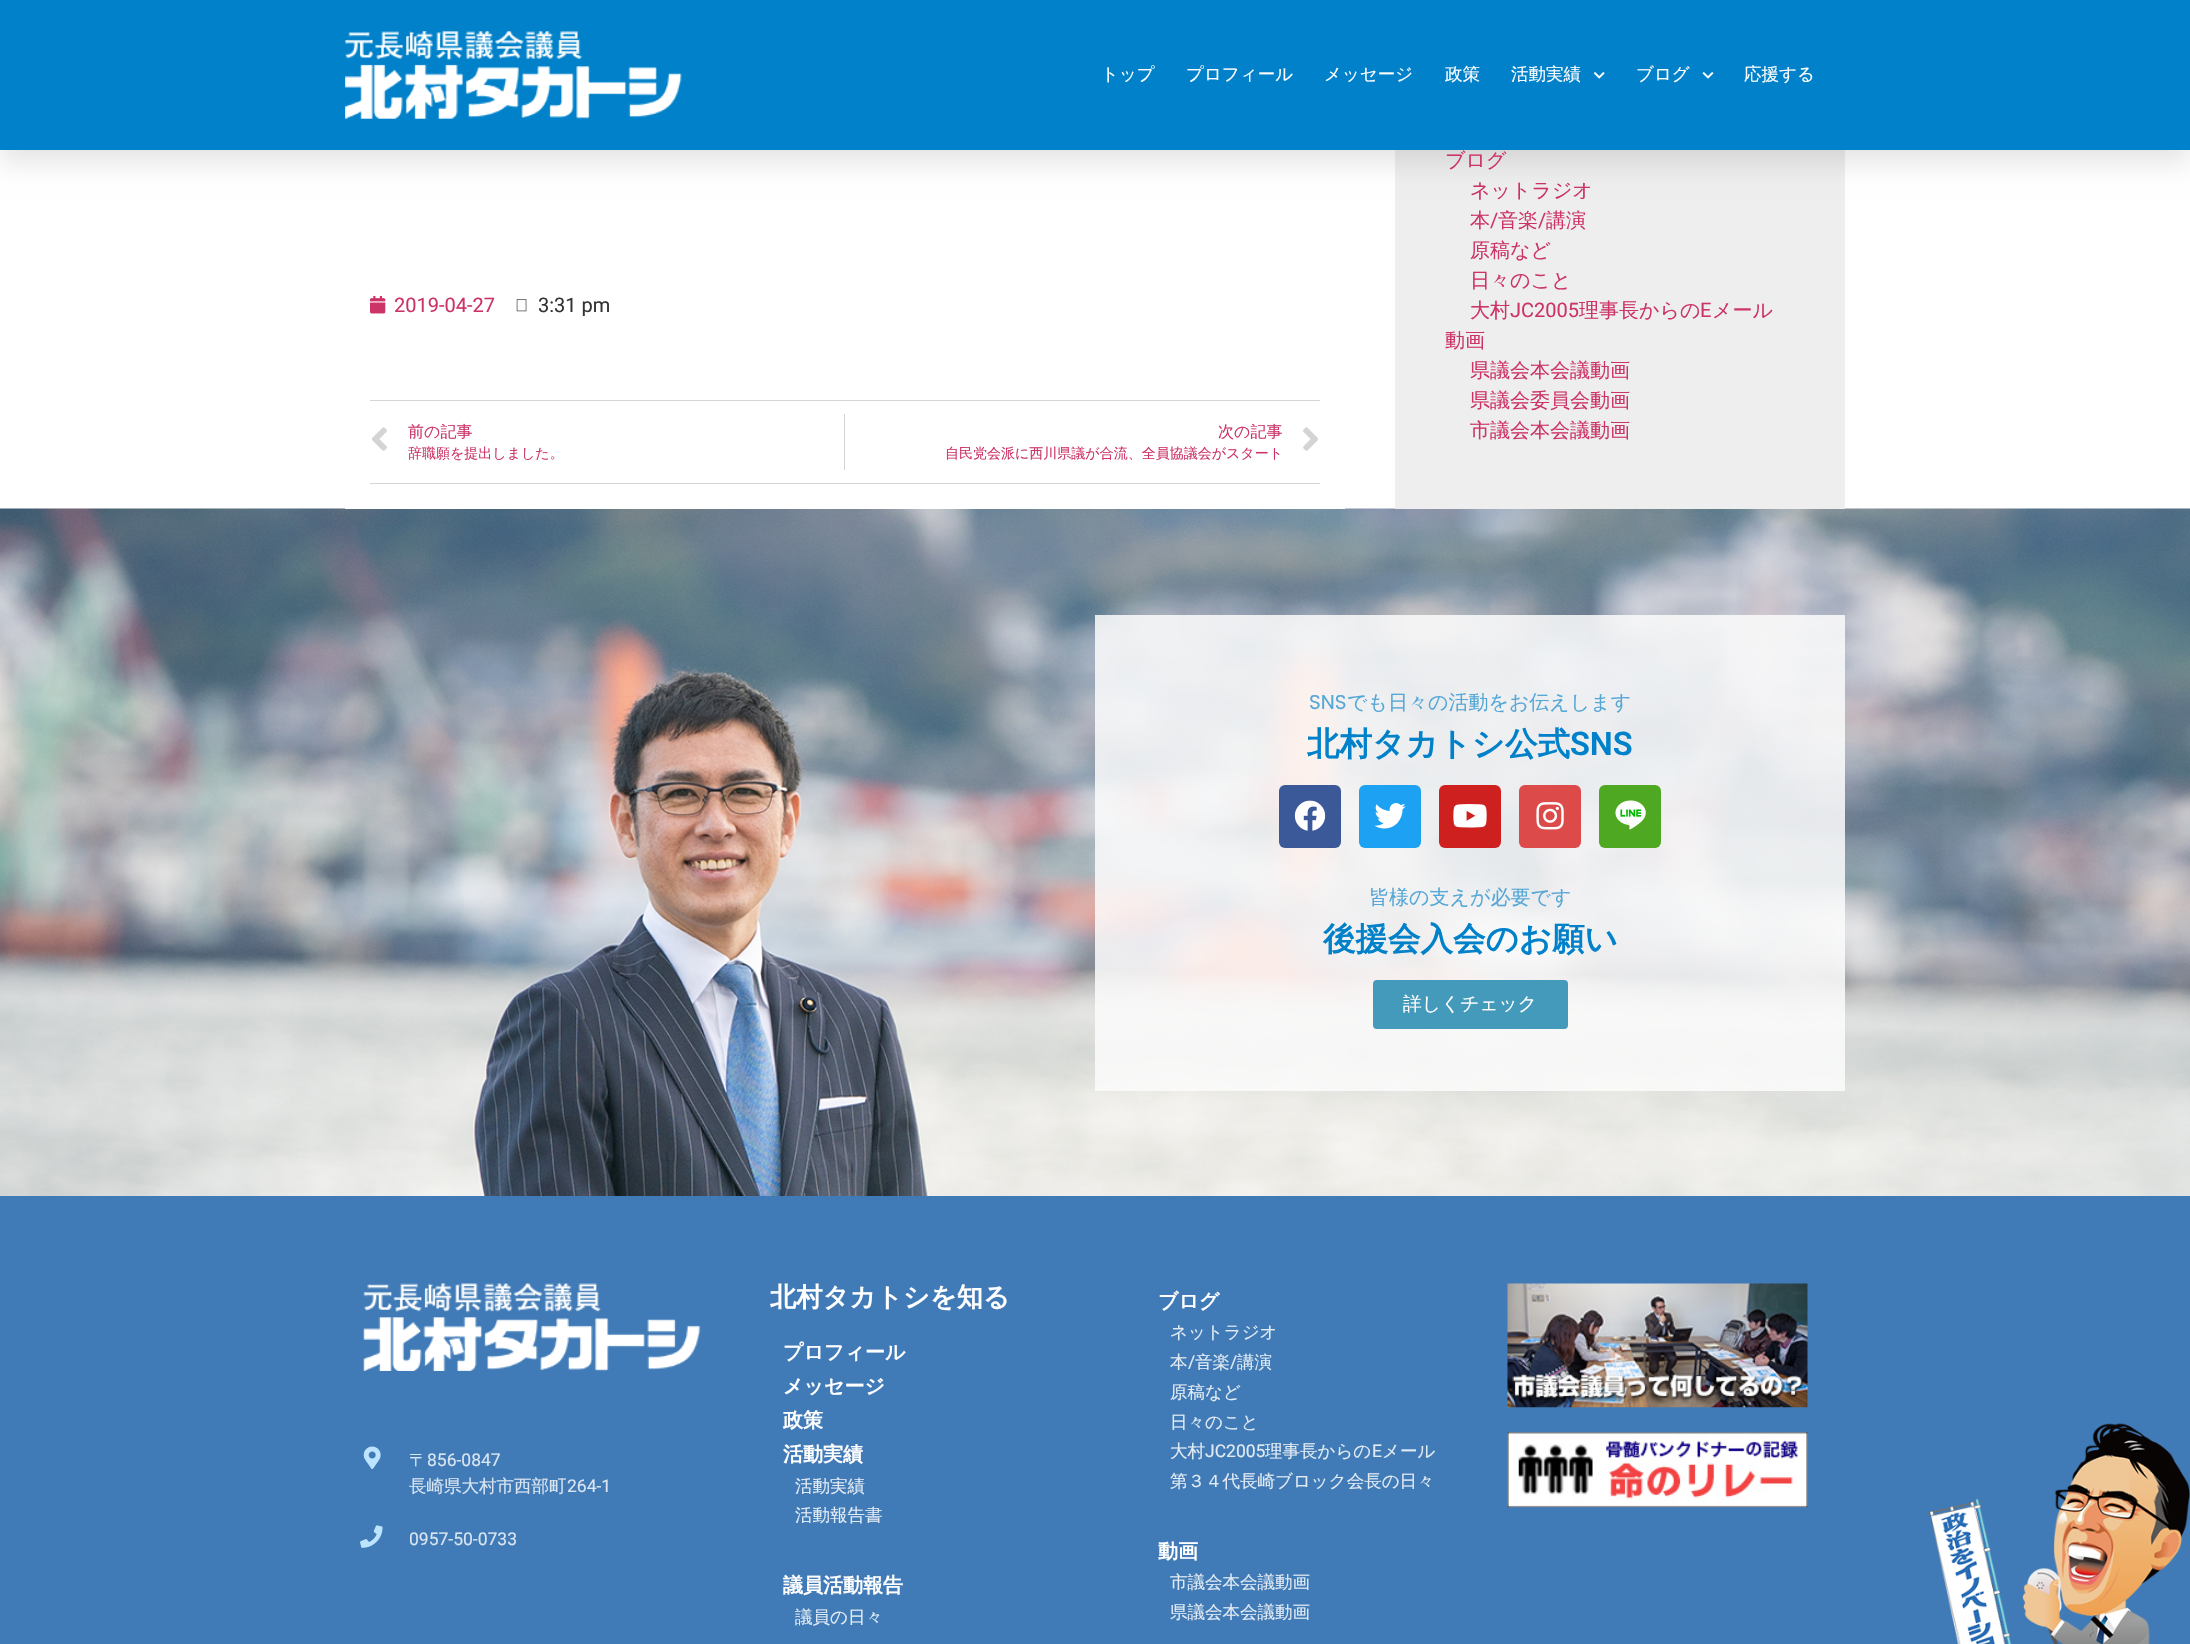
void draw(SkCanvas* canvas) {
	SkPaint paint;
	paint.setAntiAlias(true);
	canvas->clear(0xffffffff);
	canvas->drawImageRect(SkImages::DeferredFromEncodedData(SkData::MakeFromFileName("img8.png")), SkRect::MakeXYWH(0, 508, 2190, 688), SkSamplingOptions());
	paint.setColor(0xffeeeeee);
	canvas->drawRect(SkRect::MakeXYWH(1395, 150, 450, 359), paint);
	paint.setColor(0x1a000000);
	paint.setMaskFilter(SkMaskFilter::MakeBlur(kNormal_SkBlurStyle, 12.5));
	canvas->drawRect(SkRect::MakeXYWH(0, 13, 2190, 150), paint);
	paint.setMaskFilter(nullptr);
	paint.setColor(0xff0081ca);
	canvas->drawRect(SkRect::MakeXYWH(0, 0, 2190, 150), paint);
	canvas->drawImageRect(SkImages::DeferredFromEncodedData(SkData::MakeFromFileName("img1.png")), SkRect::MakeXYWH(345, 31, 337, 88), SkSamplingOptions());
	SkFont f1(fontMgr->matchFamilyStyle("WenQuanYi Zen Hei", SkFontStyle(500, SkFontStyle::kNormal_Width, SkFontStyle::kUpright_Slant)), 17.5);
	f1.setSubpixel(true);
	paint.setColor(0xffffffff);
	canvas->drawString("トップ", 1101, 80, f1, paint);
	canvas->drawString("プロフィール", 1186, 80, f1, paint);
	canvas->drawString("メッセージ", 1324, 80, f1, paint);
	canvas->drawString("政策", 1445, 80, f1, paint);
	canvas->drawString("活動実績", 1511, 80, f1, paint);
	canvas->drawImageRect(SkImages::DeferredFromEncodedData(SkData::MakeFromFileName("img2.png")), SkRect::MakeXYWH(1593, 72, 12, 7), SkSamplingOptions());
	canvas->drawString("ブログ", 1636, 80, f1, paint);
	canvas->drawImageRect(SkImages::DeferredFromEncodedData(SkData::MakeFromFileName("img3.png")), SkRect::MakeXYWH(1702, 72, 12, 7), SkSamplingOptions());
	canvas->drawString("応援する", 1744, 80, f1, paint);
	canvas->drawRect(SkRect::MakeXYWH(345, 508, 1000, 1), paint);
	canvas->drawImageRect(SkImages::DeferredFromEncodedData(SkData::MakeFromFileName("img4.png")), SkRect::MakeXYWH(370, 295, 16, 19), SkSamplingOptions());
	SkFont f2(fontMgr->matchFamilyStyle("Roboto", SkFontStyle::Normal()), 20);
	f2.setSubpixel(true);
	paint.setColor(0xffcc3366);
	canvas->drawString("2019-04-27", 394, 312, f2, paint);
	canvas->drawImageRect(SkImages::DeferredFromEncodedData(SkData::MakeFromFileName("img5.png")), SkRect::MakeXYWH(516, 299, 11, 13), SkSamplingOptions());
	paint.setColor(0xff333333);
	canvas->drawString("3:31 pm", 538, 312, f2, paint);
	paint.setColor(0xffd4d4d4);
	canvas->drawRect(SkRect::MakeXYWH(370, 400, 950, 1), paint);
	canvas->drawRect(SkRect::MakeXYWH(370, 483, 950, 1), paint);
	canvas->drawImageRect(SkImages::DeferredFromEncodedData(SkData::MakeFromFileName("img6.png")), SkRect::MakeXYWH(372, 427, 15, 24), SkSamplingOptions());
	SkFont f3(fontMgr->matchFamilyStyle("WenQuanYi Zen Hei", SkFontStyle(500, SkFontStyle::kNormal_Width, SkFontStyle::kUpright_Slant)), 16);
	f3.setSubpixel(true);
	paint.setColor(0xffcc3366);
	canvas->drawString("前の記事", 408, 437, f3, paint);
	SkFont f4(fontMgr->matchFamilyStyle("WenQuanYi Zen Hei", SkFontStyle(500, SkFontStyle::kNormal_Width, SkFontStyle::kUpright_Slant)), 14);
	f4.setSubpixel(true);
	canvas->drawString("辞職願を提出しました。", 408, 458, f4, paint);
	paint.setColor(0xffd4d4d4);
	canvas->drawRect(SkRect::MakeXYWH(844, 414, 1, 56), paint);
	paint.setColor(0xffcc3366);
	canvas->drawString("次の記事", 1218, 437, f3, paint);
	canvas->drawString("自民党会派に西川県議が合流、全員協議会がスタート", 945, 458, f4, paint);
	canvas->drawImageRect(SkImages::DeferredFromEncodedData(SkData::MakeFromFileName("img7.png")), SkRect::MakeXYWH(1303, 427, 15, 24), SkSamplingOptions());
	SkFont f5(fontMgr->matchFamilyStyle("WenQuanYi Zen Hei", SkFontStyle(500, SkFontStyle::kNormal_Width, SkFontStyle::kUpright_Slant)), 20);
	f5.setSubpixel(true);
	canvas->drawString("ブログ", 1445, 167, f5, paint);
	canvas->drawString("ネットラジオ", 1470, 197, f5, paint);
	canvas->drawString("本", 1470, 227, f5, paint);
	canvas->drawString("/", 1490, 227, f2, paint);
	canvas->drawString("音楽", 1498, 227, f5, paint);
	canvas->drawString("/", 1538, 227, f2, paint);
	canvas->drawString("講演", 1546, 227, f5, paint);
	canvas->drawString("原稿など", 1470, 257, f5, paint);
	canvas->drawString("日々のこと", 1470, 287, f5, paint);
	canvas->drawString("大村", 1470, 317, f5, paint);
	canvas->drawString("JC2005", 1510, 317, f2, paint);
	canvas->drawString("理事長からの", 1579, 317, f5, paint);
	canvas->drawString("E", 1700, 317, f2, paint);
	canvas->drawString("メール", 1712, 317, f5, paint);
	canvas->drawString("動画", 1445, 347, f5, paint);
	canvas->drawString("県議会本会議動画", 1470, 377, f5, paint);
	canvas->drawString("県議会委員会動画", 1470, 407, f5, paint);
	canvas->drawString("市議会本会議動画", 1470, 437, f5, paint);
	paint.setColor(0xd9fcfcfc);
	canvas->drawRect(SkRect::MakeXYWH(1095, 615, 750, 476), paint);
	SkFont f6(fontMgr->matchFamilyStyle("Poppins", SkFontStyle::Normal()), 20);
	f6.setSubpixel(true);
	paint.setColor(0xff54a7d7);
	canvas->drawString("SNS", 1309, 709, f6, paint);
	canvas->drawString("でも日々の活動をお伝えします", 1347, 709, f5, paint);
	SkFont f7(fontMgr->matchFamilyStyle("WenQuanYi Zen Hei", SkFontStyle::Bold()), 32.5);
	f7.setSubpixel(true);
	paint.setColor(0xff0081ca);
	canvas->drawString("北村タカトシ公式", 1307, 755, f7, paint);
	SkFont f8(fontMgr->matchFamilyStyle("Roboto", SkFontStyle(600, SkFontStyle::kNormal_Width, SkFontStyle::kUpright_Slant)), 32.5);
	f8.setSubpixel(true);
	canvas->drawString("SNS", 1570, 755, f8, paint);
	paint.setColor(0xff3b5998);
	canvas->drawRoundRect(SkRect::MakeXYWH(1279, 785, 62, 63), 6, 6, paint);
	canvas->drawImageRect(SkImages::DeferredFromEncodedData(SkData::MakeFromFileName("img9.png")), SkRect::MakeXYWH(1294, 800, 32, 31), SkSamplingOptions());
	paint.setColor(0xff1da1f2);
	canvas->drawRoundRect(SkRect::MakeXYWH(1359, 785, 62, 63), 6, 6, paint);
	canvas->drawImageRect(SkImages::DeferredFromEncodedData(SkData::MakeFromFileName("img10.png")), SkRect::MakeXYWH(1374, 803, 32, 26), SkSamplingOptions());
	paint.setColor(0xffcd201f);
	canvas->drawRoundRect(SkRect::MakeXYWH(1439, 785, 62, 63), 6, 6, paint);
	canvas->drawImageRect(SkImages::DeferredFromEncodedData(SkData::MakeFromFileName("img11.png")), SkRect::MakeXYWH(1453, 804, 34, 24), SkSamplingOptions());
	paint.setColor(0xffdd4a4a);
	canvas->drawRoundRect(SkRect::MakeXYWH(1519, 785, 62, 63), 6, 6, paint);
	canvas->drawImageRect(SkImages::DeferredFromEncodedData(SkData::MakeFromFileName("img12.png")), SkRect::MakeXYWH(1536, 802, 28, 28), SkSamplingOptions());
	paint.setColor(0xff4ea821);
	canvas->drawRoundRect(SkRect::MakeXYWH(1599, 785, 62, 63), 6, 6, paint);
	canvas->drawImageRect(SkImages::DeferredFromEncodedData(SkData::MakeFromFileName("img13.png")), SkRect::MakeXYWH(1615, 800, 31, 30), SkSamplingOptions());
	paint.setColor(0xff54a7d7);
	canvas->drawString("皆様の支えが必要です", 1369, 904, f5, paint);
	paint.setColor(0xff0081ca);
	canvas->drawString("後援会入会のお願い", 1323, 950, f7, paint);
	paint.setColor(0xff439aba);
	canvas->drawRoundRect(SkRect::MakeXYWH(1373, 980, 195, 49), 4, 4, paint);
	SkFont f9(fontMgr->matchFamilyStyle("WenQuanYi Zen Hei", SkFontStyle(500, SkFontStyle::kNormal_Width, SkFontStyle::kUpright_Slant)), 18.75);
	f9.setSubpixel(true);
	paint.setColor(0xffffffff);
	canvas->drawString("詳しくチェック", 1403, 1010, f9, paint);
	paint.setColor(0xff407bb7);
	canvas->drawRect(SkRect::MakeXYWH(0, 1196, 2190, 448), paint);
	canvas->drawImageRect(SkImages::DeferredFromEncodedData(SkData::MakeFromFileName("img14.png")), SkRect::MakeXYWH(363, 1283, 338, 88), SkSamplingOptions());
	canvas->drawImageRect(SkImages::DeferredFromEncodedData(SkData::MakeFromFileName("img15.png")), SkRect::MakeXYWH(363, 1446, 18, 23), SkSamplingOptions());
	paint.setColor(0xffd9e5f1);
	canvas->drawString("〒", 409, 1466, f1, paint);
	SkFont f10(fontMgr->matchFamilyStyle("Roboto", SkFontStyle::Normal()), 17.5);
	f10.setSubpixel(true);
	canvas->drawString("856-0847", 427, 1466, f10, paint);
	canvas->drawString("長崎県大村市西部町", 409, 1492, f1, paint);
	canvas->drawString("264-1", 567, 1492, f10, paint);
	canvas->drawImageRect(SkImages::DeferredFromEncodedData(SkData::MakeFromFileName("img16.png")), SkRect::MakeXYWH(360, 1525, 23, 23), SkSamplingOptions());
	canvas->drawString("0957-50-0733", 409, 1545, f10, paint);
	SkFont f11(fontMgr->matchFamilyStyle("WenQuanYi Zen Hei", SkFontStyle::Bold()), 26.25);
	f11.setSubpixel(true);
	paint.setColor(0xffffffff);
	canvas->drawString("北村タカトシを知る", 770, 1306, f11, paint);
	SkFont f12(fontMgr->matchFamilyStyle("WenQuanYi Zen Hei", SkFontStyle::Bold()), 20);
	f12.setSubpixel(true);
	canvas->drawString("プロフィール", 783, 1359, f12, paint);
	canvas->drawString("メッセージ", 783, 1393, f12, paint);
	canvas->drawString("政策", 783, 1427, f12, paint);
	canvas->drawString("活動実績", 783, 1461, f12, paint);
	paint.setColor(0xffe2ebf4);
	canvas->drawString("活動実績", 795, 1492, f1, paint);
	canvas->drawString("活動報告書", 795, 1521, f1, paint);
	paint.setColor(0xffffffff);
	canvas->drawString("議員活動報告", 783, 1592, f12, paint);
	paint.setColor(0xffe2ebf4);
	canvas->drawString("議員の日々", 795, 1623, f1, paint);
	paint.setColor(0xffffffff);
	canvas->drawString("ブログ", 1158, 1308, f12, paint);
	paint.setColor(0xffe2ebf4);
	canvas->drawString("ネットラジオ", 1170, 1338, f1, paint);
	canvas->drawString("本", 1170, 1368, f1, paint);
	canvas->drawString("/", 1188, 1368, f10, paint);
	canvas->drawString("音楽", 1195, 1368, f1, paint);
	canvas->drawString("/", 1230, 1368, f10, paint);
	canvas->drawString("講演", 1237, 1368, f1, paint);
	canvas->drawString("原稿など", 1170, 1398, f1, paint);
	canvas->drawString("日々のこと", 1170, 1428, f1, paint);
	canvas->drawString("大村", 1170, 1457, f1, paint);
	canvas->drawString("JC2005", 1205, 1457, f10, paint);
	canvas->drawString("理事長からの", 1265, 1457, f1, paint);
	canvas->drawString("E", 1372, 1457, f10, paint);
	canvas->drawString("メール", 1382, 1457, f1, paint);
	canvas->drawString("第３４代長崎ブロック会長の日々", 1170, 1487, f1, paint);
	paint.setColor(0xffffffff);
	canvas->drawString("動画", 1158, 1558, f12, paint);
	paint.setColor(0xffe2ebf4);
	canvas->drawString("市議会本会議動画", 1170, 1588, f1, paint);
	canvas->drawString("県議会本会議動画", 1170, 1618, f1, paint);
	canvas->drawImageRect(SkImages::DeferredFromEncodedData(SkData::MakeFromFileName("img17.png")), SkRect::MakeXYWH(1507, 1283, 301, 125), SkSamplingOptions());
	canvas->drawImageRect(SkImages::DeferredFromEncodedData(SkData::MakeFromFileName("img18.png")), SkRect::MakeXYWH(1507, 1432, 301, 76), SkSamplingOptions());
	canvas->drawImageRect(SkImages::DeferredFromEncodedData(SkData::MakeFromFileName("img19.png")), SkRect::MakeXYWH(1927, 1423, 263, 221), SkSamplingOptions());
}
